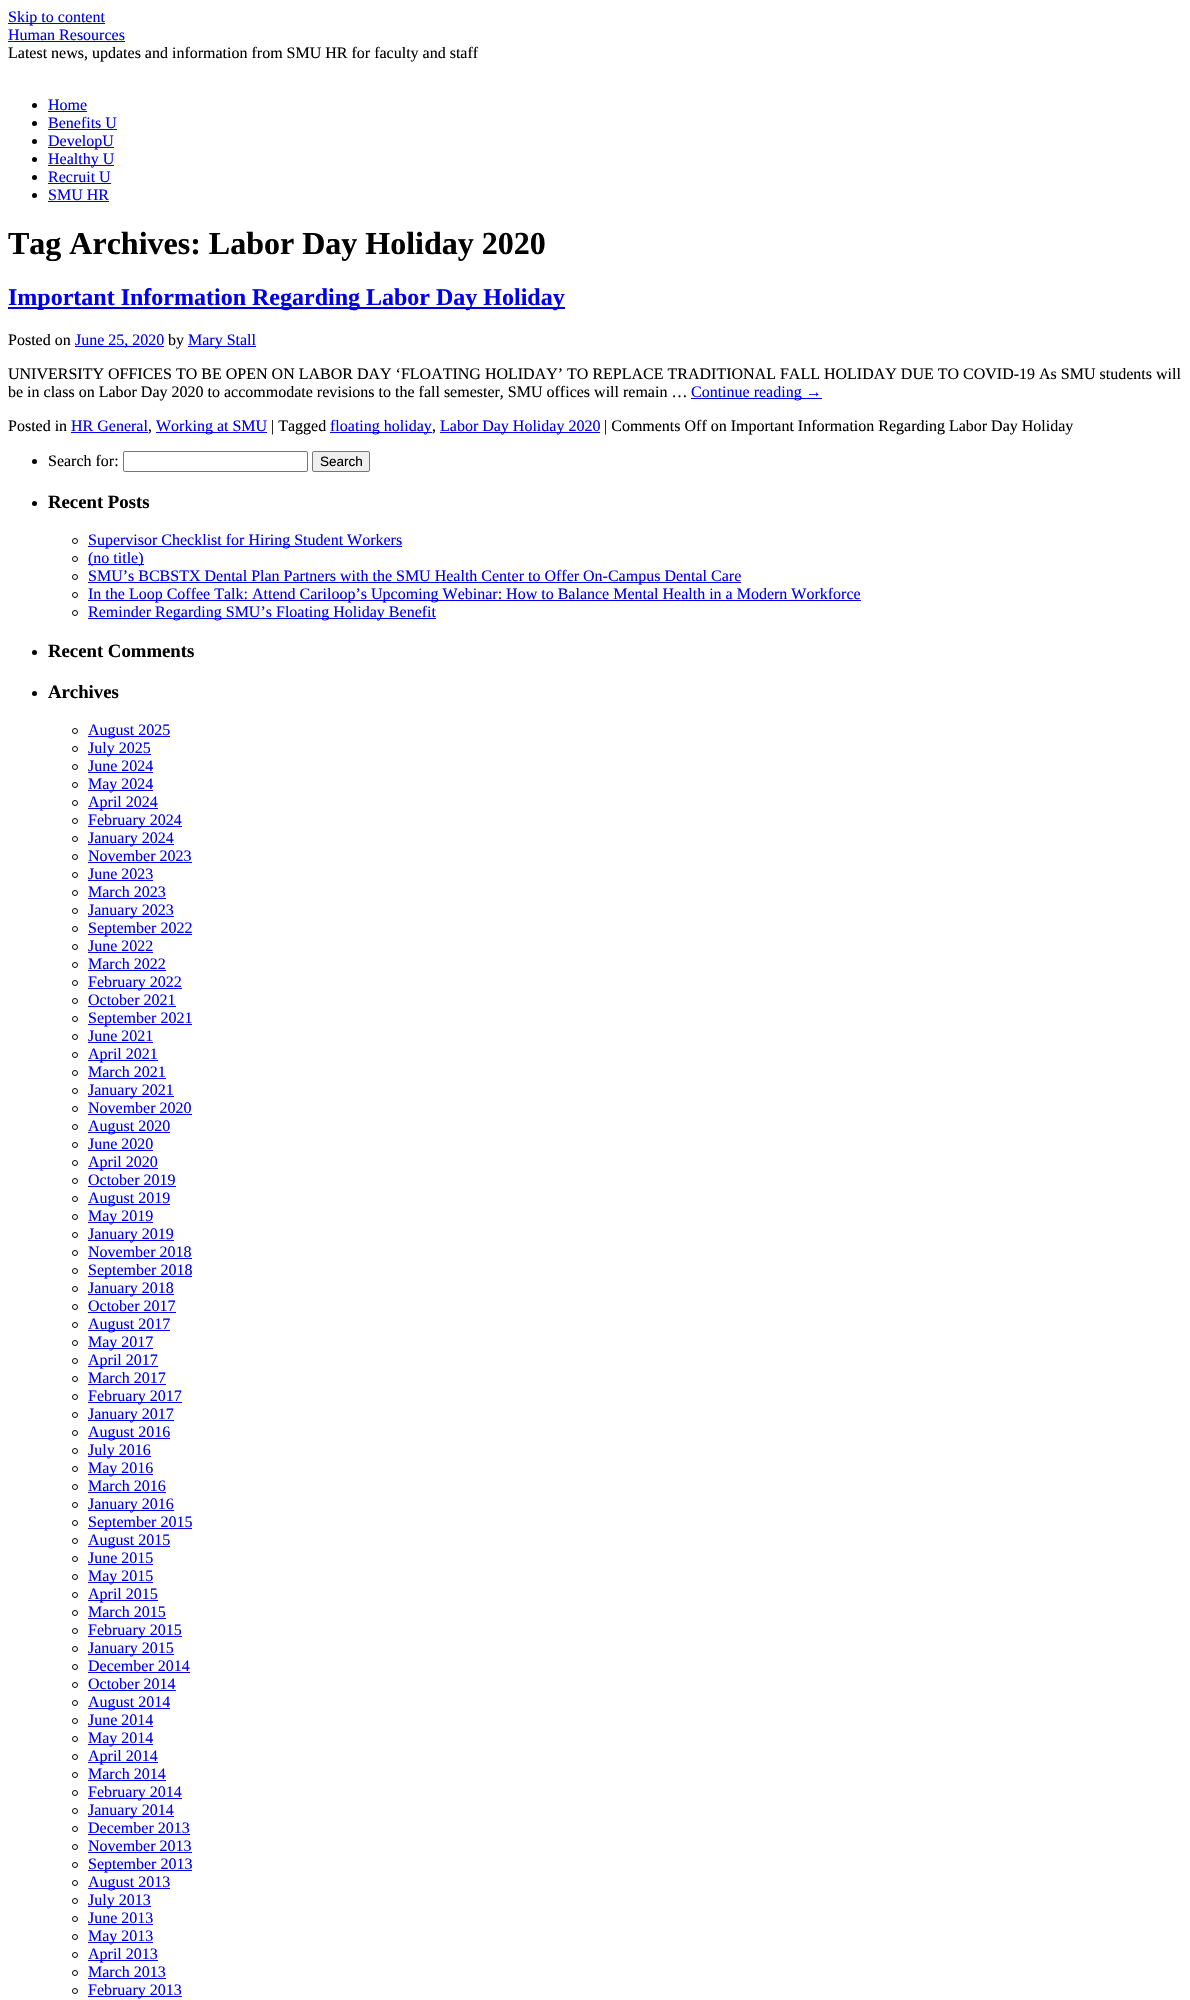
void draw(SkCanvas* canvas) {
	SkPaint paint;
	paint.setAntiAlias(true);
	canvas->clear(0xffffffff);
	paint.setColor(0xff0000ee);
	canvas->drawRect(SkRect::MakeXYWH(8, 23, 97, 1), paint);
	SkFont f1(fontMgr->matchFamilyStyle("Liberation Serif", SkFontStyle::Normal()), 16);
	f1.setSubpixel(true);
	canvas->drawString("Skip to content", 8, 22, f1, paint);
	canvas->drawString("Human Resources", 8, 40, f1, paint);
	canvas->drawRect(SkRect::MakeXYWH(8, 41, 117, 1), paint);
	paint.setColor(0xff000000);
	canvas->drawString("Latest news, updates and information from SMU HR for faculty and staff", 8, 58, f1, paint);
	canvas->drawCircle(34.5, 105.5, 2.5, paint);
	paint.setColor(0xff0000ee);
	canvas->drawString("Home", 48, 110, f1, paint);
	canvas->drawRect(SkRect::MakeXYWH(48, 111, 39, 1), paint);
	paint.setColor(0xff000000);
	canvas->drawCircle(34.5, 123.5, 2.5, paint);
	paint.setColor(0xff0000ee);
	canvas->drawString("Benefits U", 48, 128, f1, paint);
	canvas->drawRect(SkRect::MakeXYWH(48, 129, 69, 1), paint);
	paint.setColor(0xff000000);
	canvas->drawCircle(34.5, 141.5, 2.5, paint);
	paint.setColor(0xff0000ee);
	canvas->drawRect(SkRect::MakeXYWH(48, 147, 66, 1), paint);
	canvas->drawString("DevelopU", 48, 146, f1, paint);
	paint.setColor(0xff000000);
	canvas->drawCircle(34.5, 159.5, 2.5, paint);
	paint.setColor(0xff0000ee);
	canvas->drawRect(SkRect::MakeXYWH(48, 165, 66, 1), paint);
	canvas->drawString("Healthy U", 48, 164, f1, paint);
	paint.setColor(0xff000000);
	canvas->drawCircle(34.5, 177.5, 2.5, paint);
	paint.setColor(0xff0000ee);
	canvas->drawString("Recruit U", 48, 182, f1, paint);
	canvas->drawRect(SkRect::MakeXYWH(48, 183, 63, 1), paint);
	paint.setColor(0xff000000);
	canvas->drawCircle(34.5, 195.5, 2.5, paint);
	paint.setColor(0xff0000ee);
	canvas->drawString("SMU HR", 48, 200, f1, paint);
	canvas->drawRect(SkRect::MakeXYWH(48, 201, 61, 1), paint);
	SkFont f2(fontMgr->matchFamilyStyle("Liberation Serif", SkFontStyle::Bold()), 32);
	f2.setSubpixel(true);
	paint.setColor(0xff000000);
	canvas->drawString("Tag Archives: Labor Day Holiday 2020", 8, 254, f2, paint);
	paint.setColor(0xff0000ee);
	canvas->drawRect(SkRect::MakeXYWH(8, 307, 557, 2), paint);
	SkFont f3(fontMgr->matchFamilyStyle("Liberation Serif", SkFontStyle::Bold()), 24);
	f3.setSubpixel(true);
	canvas->drawString("Important Information Regarding Labor Day Holiday", 8, 305, f3, paint);
	paint.setColor(0xff000000);
	canvas->drawString("Posted on", 8, 345, f1, paint);
	paint.setColor(0xff0000ee);
	canvas->drawRect(SkRect::MakeXYWH(75, 346, 89, 1), paint);
	canvas->drawString("June 25, 2020", 75, 345, f1, paint);
	paint.setColor(0xff000000);
	canvas->drawString("by", 168, 345, f1, paint);
	paint.setColor(0xff0000ee);
	canvas->drawRect(SkRect::MakeXYWH(188, 346, 68, 1), paint);
	canvas->drawString("Mary Stall", 188, 345, f1, paint);
	paint.setColor(0xff000000);
	canvas->drawString("UNIVERSITY OFFICES TO BE OPEN ON LABOR DAY ‘FLOATING HOLIDAY’ TO REPLACE TRADITIONAL FALL HOLIDAY DUE TO COVID-19 As SMU students will", 8, 379, f1, paint);
	canvas->drawString("be in class on Labor Day 2020 to accommodate revisions to the fall semester, SMU offices will remain …", 8, 397, f1, paint);
	paint.setColor(0xff0000ee);
	canvas->drawRect(SkRect::MakeXYWH(691, 398, 131, 1), paint);
	canvas->drawString("Continue reading →", 691, 397, f1, paint);
	paint.setColor(0xff000000);
	canvas->drawString("Posted in", 8, 431, f1, paint);
	paint.setColor(0xff0000ee);
	canvas->drawString("HR General", 71, 431, f1, paint);
	paint.setColor(0xff000000);
	canvas->drawString(",", 148, 431, f1, paint);
	paint.setColor(0xff0000ee);
	canvas->drawRect(SkRect::MakeXYWH(71, 432, 77, 1), paint);
	canvas->drawRect(SkRect::MakeXYWH(156, 432, 111, 1), paint);
	canvas->drawString("Working at SMU", 156, 431, f1, paint);
	paint.setColor(0xff000000);
	canvas->drawString("| Tagged", 271, 431, f1, paint);
	paint.setColor(0xff0000ee);
	canvas->drawRect(SkRect::MakeXYWH(330, 432, 102, 1), paint);
	canvas->drawString("floating holiday", 330, 431, f1, paint);
	paint.setColor(0xff000000);
	canvas->drawString(",", 432, 431, f1, paint);
	paint.setColor(0xff0000ee);
	canvas->drawRect(SkRect::MakeXYWH(440, 432, 160, 1), paint);
	canvas->drawString("Labor Day Holiday 2020", 440, 431, f1, paint);
	paint.setColor(0xff000000);
	canvas->drawString("| Comments Off on Important Information Regarding Labor Day Holiday", 604, 431, f1, paint);
	canvas->drawCircle(34.5, 461.5, 2.5, paint);
	canvas->drawString("Search for:", 48, 466, f1, paint);
	paint.setStroke(true);
	paint.setStrokeWidth(1);
	paint.setColor(0xff767676);
	canvas->drawRoundRect(SkRect::MakeXYWH(123.5, 451.5, 184, 20), 1.5, 1.5, paint);
	paint.setStroke(false);
	paint.setColor(0xffefefef);
	canvas->drawRoundRect(SkRect::MakeXYWH(312.5, 451.5, 57, 20), 1.5, 1.5, paint);
	paint.setStroke(true);
	paint.setColor(0xff767676);
	canvas->drawRoundRect(SkRect::MakeXYWH(312.5, 451.5, 57, 20), 1.5, 1.5, paint);
	SkFont f4(fontMgr->matchFamilyStyle("Liberation Sans", SkFontStyle::Normal()), 13.5);
	f4.setSubpixel(true);
	paint.setStroke(false);
	paint.setColor(0xff000000);
	canvas->drawString("Search", 320, 466, f4, paint);
	canvas->drawCircle(34.5, 503.5, 2.5, paint);
	SkFont f5(fontMgr->matchFamilyStyle("Liberation Serif", SkFontStyle::Bold()), 18.75);
	f5.setSubpixel(true);
	canvas->drawString("Recent Posts", 48, 508, f5, paint);
	paint.setStroke(true);
	canvas->drawCircle(75, 541, 2.5, paint);
	paint.setStroke(false);
	paint.setColor(0xff0000ee);
	canvas->drawRect(SkRect::MakeXYWH(88, 546, 314, 1), paint);
	canvas->drawString("Supervisor Checklist for Hiring Student Workers", 88, 545, f1, paint);
	paint.setStroke(true);
	paint.setColor(0xff000000);
	canvas->drawCircle(75, 559, 2.5, paint);
	paint.setStroke(false);
	paint.setColor(0xff0000ee);
	canvas->drawRect(SkRect::MakeXYWH(88, 564, 56, 1), paint);
	canvas->drawString("(no title)", 88, 563, f1, paint);
	paint.setStroke(true);
	paint.setColor(0xff000000);
	canvas->drawCircle(75, 577, 2.5, paint);
	paint.setStroke(false);
	paint.setColor(0xff0000ee);
	canvas->drawRect(SkRect::MakeXYWH(88, 582, 653, 1), paint);
	canvas->drawString("SMU’s BCBSTX Dental Plan Partners with the SMU Health Center to Offer On-Campus Dental Care", 88, 581, f1, paint);
	paint.setStroke(true);
	paint.setColor(0xff000000);
	canvas->drawCircle(75, 595, 2.5, paint);
	paint.setStroke(false);
	paint.setColor(0xff0000ee);
	canvas->drawRect(SkRect::MakeXYWH(88, 600, 773, 1), paint);
	canvas->drawString("In the Loop Coffee Talk: Attend Cariloop’s Upcoming Webinar: How to Balance Mental Health in a Modern Workforce", 88, 599, f1, paint);
	paint.setStroke(true);
	paint.setColor(0xff000000);
	canvas->drawCircle(75, 613, 2.5, paint);
	paint.setStroke(false);
	paint.setColor(0xff0000ee);
	canvas->drawRect(SkRect::MakeXYWH(88, 618, 348, 1), paint);
	canvas->drawString("Reminder Regarding SMU’s Floating Holiday Benefit", 88, 617, f1, paint);
	paint.setColor(0xff000000);
	canvas->drawCircle(34.5, 652.5, 2.5, paint);
	canvas->drawString("Recent Comments", 48, 657, f5, paint);
	canvas->drawCircle(34.5, 693.5, 2.5, paint);
	canvas->drawString("Archives", 48, 698, f5, paint);
	paint.setStroke(true);
	canvas->drawCircle(75, 731, 2.5, paint);
	paint.setStroke(false);
	paint.setColor(0xff0000ee);
	canvas->drawRect(SkRect::MakeXYWH(88, 736, 82, 1), paint);
	canvas->drawString("August 2025", 88, 735, f1, paint);
	paint.setStroke(true);
	paint.setColor(0xff000000);
	canvas->drawCircle(75, 749, 2.5, paint);
	paint.setStroke(false);
	paint.setColor(0xff0000ee);
	canvas->drawRect(SkRect::MakeXYWH(88, 754, 63, 1), paint);
	canvas->drawString("July 2025", 88, 753, f1, paint);
	paint.setStroke(true);
	paint.setColor(0xff000000);
	canvas->drawCircle(75, 767, 2.5, paint);
	paint.setStroke(false);
	paint.setColor(0xff0000ee);
	canvas->drawString("June 2024", 88, 771, f1, paint);
	canvas->drawRect(SkRect::MakeXYWH(88, 772, 65, 1), paint);
	paint.setStroke(true);
	paint.setColor(0xff000000);
	canvas->drawCircle(75, 785, 2.5, paint);
	paint.setStroke(false);
	paint.setColor(0xff0000ee);
	canvas->drawRect(SkRect::MakeXYWH(88, 790, 65, 1), paint);
	canvas->drawString("May 2024", 88, 789, f1, paint);
	paint.setStroke(true);
	paint.setColor(0xff000000);
	canvas->drawCircle(75, 803, 2.5, paint);
	paint.setStroke(false);
	paint.setColor(0xff0000ee);
	canvas->drawRect(SkRect::MakeXYWH(88, 808, 70, 1), paint);
	canvas->drawString("April 2024", 88, 807, f1, paint);
	paint.setStroke(true);
	paint.setColor(0xff000000);
	canvas->drawCircle(75, 821, 2.5, paint);
	paint.setStroke(false);
	paint.setColor(0xff0000ee);
	canvas->drawRect(SkRect::MakeXYWH(88, 826, 94, 1), paint);
	canvas->drawString("February 2024", 88, 825, f1, paint);
	paint.setStroke(true);
	paint.setColor(0xff000000);
	canvas->drawCircle(75, 839, 2.5, paint);
	paint.setStroke(false);
	paint.setColor(0xff0000ee);
	canvas->drawRect(SkRect::MakeXYWH(88, 844, 86, 1), paint);
	canvas->drawString("January 2024", 88, 843, f1, paint);
	paint.setStroke(true);
	paint.setColor(0xff000000);
	canvas->drawCircle(75, 857, 2.5, paint);
	paint.setStroke(false);
	paint.setColor(0xff0000ee);
	canvas->drawString("November 2023", 88, 861, f1, paint);
	canvas->drawRect(SkRect::MakeXYWH(88, 862, 104, 1), paint);
	paint.setStroke(true);
	paint.setColor(0xff000000);
	canvas->drawCircle(75, 875, 2.5, paint);
	paint.setStroke(false);
	paint.setColor(0xff0000ee);
	canvas->drawString("June 2023", 88, 879, f1, paint);
	canvas->drawRect(SkRect::MakeXYWH(88, 880, 65, 1), paint);
	paint.setStroke(true);
	paint.setColor(0xff000000);
	canvas->drawCircle(75, 893, 2.5, paint);
	paint.setStroke(false);
	paint.setColor(0xff0000ee);
	canvas->drawString("March 2023", 88, 897, f1, paint);
	canvas->drawRect(SkRect::MakeXYWH(88, 898, 78, 1), paint);
	paint.setStroke(true);
	paint.setColor(0xff000000);
	canvas->drawCircle(75, 911, 2.5, paint);
	paint.setStroke(false);
	paint.setColor(0xff0000ee);
	canvas->drawRect(SkRect::MakeXYWH(88, 916, 86, 1), paint);
	canvas->drawString("January 2023", 88, 915, f1, paint);
	paint.setStroke(true);
	paint.setColor(0xff000000);
	canvas->drawCircle(75, 929, 2.5, paint);
	paint.setStroke(false);
	paint.setColor(0xff0000ee);
	canvas->drawRect(SkRect::MakeXYWH(88, 934, 104, 1), paint);
	canvas->drawString("September 2022", 88, 933, f1, paint);
	paint.setStroke(true);
	paint.setColor(0xff000000);
	canvas->drawCircle(75, 947, 2.5, paint);
	paint.setStroke(false);
	paint.setColor(0xff0000ee);
	canvas->drawString("June 2022", 88, 951, f1, paint);
	canvas->drawRect(SkRect::MakeXYWH(88, 952, 65, 1), paint);
	paint.setStroke(true);
	paint.setColor(0xff000000);
	canvas->drawCircle(75, 965, 2.5, paint);
	paint.setStroke(false);
	paint.setColor(0xff0000ee);
	canvas->drawString("March 2022", 88, 969, f1, paint);
	canvas->drawRect(SkRect::MakeXYWH(88, 970, 78, 1), paint);
	paint.setStroke(true);
	paint.setColor(0xff000000);
	canvas->drawCircle(75, 983, 2.5, paint);
	paint.setStroke(false);
	paint.setColor(0xff0000ee);
	canvas->drawRect(SkRect::MakeXYWH(88, 988, 94, 1), paint);
	canvas->drawString("February 2022", 88, 987, f1, paint);
	paint.setStroke(true);
	paint.setColor(0xff000000);
	canvas->drawCircle(75, 1001, 2.5, paint);
	paint.setStroke(false);
	paint.setColor(0xff0000ee);
	canvas->drawString("October 2021", 88, 1005, f1, paint);
	canvas->drawRect(SkRect::MakeXYWH(88, 1006, 88, 1), paint);
	paint.setStroke(true);
	paint.setColor(0xff000000);
	canvas->drawCircle(75, 1019, 2.5, paint);
	paint.setStroke(false);
	paint.setColor(0xff0000ee);
	canvas->drawRect(SkRect::MakeXYWH(88, 1024, 104, 1), paint);
	canvas->drawString("September 2021", 88, 1023, f1, paint);
	paint.setStroke(true);
	paint.setColor(0xff000000);
	canvas->drawCircle(75, 1037, 2.5, paint);
	paint.setStroke(false);
	paint.setColor(0xff0000ee);
	canvas->drawString("June 2021", 88, 1041, f1, paint);
	canvas->drawRect(SkRect::MakeXYWH(88, 1042, 65, 1), paint);
	paint.setStroke(true);
	paint.setColor(0xff000000);
	canvas->drawCircle(75, 1055, 2.5, paint);
	paint.setStroke(false);
	paint.setColor(0xff0000ee);
	canvas->drawRect(SkRect::MakeXYWH(88, 1060, 70, 1), paint);
	canvas->drawString("April 2021", 88, 1059, f1, paint);
	paint.setStroke(true);
	paint.setColor(0xff000000);
	canvas->drawCircle(75, 1073, 2.5, paint);
	paint.setStroke(false);
	paint.setColor(0xff0000ee);
	canvas->drawString("March 2021", 88, 1077, f1, paint);
	canvas->drawRect(SkRect::MakeXYWH(88, 1078, 78, 1), paint);
	paint.setStroke(true);
	paint.setColor(0xff000000);
	canvas->drawCircle(75, 1091, 2.5, paint);
	paint.setStroke(false);
	paint.setColor(0xff0000ee);
	canvas->drawRect(SkRect::MakeXYWH(88, 1096, 86, 1), paint);
	canvas->drawString("January 2021", 88, 1095, f1, paint);
	paint.setStroke(true);
	paint.setColor(0xff000000);
	canvas->drawCircle(75, 1109, 2.5, paint);
	paint.setStroke(false);
	paint.setColor(0xff0000ee);
	canvas->drawString("November 2020", 88, 1113, f1, paint);
	canvas->drawRect(SkRect::MakeXYWH(88, 1114, 104, 1), paint);
	paint.setStroke(true);
	paint.setColor(0xff000000);
	canvas->drawCircle(75, 1127, 2.5, paint);
	paint.setStroke(false);
	paint.setColor(0xff0000ee);
	canvas->drawRect(SkRect::MakeXYWH(88, 1132, 82, 1), paint);
	canvas->drawString("August 2020", 88, 1131, f1, paint);
	paint.setStroke(true);
	paint.setColor(0xff000000);
	canvas->drawCircle(75, 1145, 2.5, paint);
	paint.setStroke(false);
	paint.setColor(0xff0000ee);
	canvas->drawString("June 2020", 88, 1149, f1, paint);
	canvas->drawRect(SkRect::MakeXYWH(88, 1150, 65, 1), paint);
	paint.setStroke(true);
	paint.setColor(0xff000000);
	canvas->drawCircle(75, 1163, 2.5, paint);
	paint.setStroke(false);
	paint.setColor(0xff0000ee);
	canvas->drawRect(SkRect::MakeXYWH(88, 1168, 70, 1), paint);
	canvas->drawString("April 2020", 88, 1167, f1, paint);
	paint.setStroke(true);
	paint.setColor(0xff000000);
	canvas->drawCircle(75, 1181, 2.5, paint);
	paint.setStroke(false);
	paint.setColor(0xff0000ee);
	canvas->drawString("October 2019", 88, 1185, f1, paint);
	canvas->drawRect(SkRect::MakeXYWH(88, 1186, 88, 1), paint);
	paint.setStroke(true);
	paint.setColor(0xff000000);
	canvas->drawCircle(75, 1199, 2.5, paint);
	paint.setStroke(false);
	paint.setColor(0xff0000ee);
	canvas->drawRect(SkRect::MakeXYWH(88, 1204, 82, 1), paint);
	canvas->drawString("August 2019", 88, 1203, f1, paint);
	paint.setStroke(true);
	paint.setColor(0xff000000);
	canvas->drawCircle(75, 1217, 2.5, paint);
	paint.setStroke(false);
	paint.setColor(0xff0000ee);
	canvas->drawRect(SkRect::MakeXYWH(88, 1222, 65, 1), paint);
	canvas->drawString("May 2019", 88, 1221, f1, paint);
	paint.setStroke(true);
	paint.setColor(0xff000000);
	canvas->drawCircle(75, 1235, 2.5, paint);
	paint.setStroke(false);
	paint.setColor(0xff0000ee);
	canvas->drawRect(SkRect::MakeXYWH(88, 1240, 86, 1), paint);
	canvas->drawString("January 2019", 88, 1239, f1, paint);
	paint.setStroke(true);
	paint.setColor(0xff000000);
	canvas->drawCircle(75, 1253, 2.5, paint);
	paint.setStroke(false);
	paint.setColor(0xff0000ee);
	canvas->drawString("November 2018", 88, 1257, f1, paint);
	canvas->drawRect(SkRect::MakeXYWH(88, 1258, 104, 1), paint);
	paint.setStroke(true);
	paint.setColor(0xff000000);
	canvas->drawCircle(75, 1271, 2.5, paint);
	paint.setStroke(false);
	paint.setColor(0xff0000ee);
	canvas->drawRect(SkRect::MakeXYWH(88, 1276, 104, 1), paint);
	canvas->drawString("September 2018", 88, 1275, f1, paint);
	paint.setStroke(true);
	paint.setColor(0xff000000);
	canvas->drawCircle(75, 1289, 2.5, paint);
	paint.setStroke(false);
	paint.setColor(0xff0000ee);
	canvas->drawRect(SkRect::MakeXYWH(88, 1294, 86, 1), paint);
	canvas->drawString("January 2018", 88, 1293, f1, paint);
	paint.setStroke(true);
	paint.setColor(0xff000000);
	canvas->drawCircle(75, 1307, 2.5, paint);
	paint.setStroke(false);
	paint.setColor(0xff0000ee);
	canvas->drawString("October 2017", 88, 1311, f1, paint);
	canvas->drawRect(SkRect::MakeXYWH(88, 1312, 88, 1), paint);
	paint.setStroke(true);
	paint.setColor(0xff000000);
	canvas->drawCircle(75, 1325, 2.5, paint);
	paint.setStroke(false);
	paint.setColor(0xff0000ee);
	canvas->drawRect(SkRect::MakeXYWH(88, 1330, 82, 1), paint);
	canvas->drawString("August 2017", 88, 1329, f1, paint);
	paint.setStroke(true);
	paint.setColor(0xff000000);
	canvas->drawCircle(75, 1343, 2.5, paint);
	paint.setStroke(false);
	paint.setColor(0xff0000ee);
	canvas->drawRect(SkRect::MakeXYWH(88, 1348, 65, 1), paint);
	canvas->drawString("May 2017", 88, 1347, f1, paint);
	paint.setStroke(true);
	paint.setColor(0xff000000);
	canvas->drawCircle(75, 1361, 2.5, paint);
	paint.setStroke(false);
	paint.setColor(0xff0000ee);
	canvas->drawRect(SkRect::MakeXYWH(88, 1366, 70, 1), paint);
	canvas->drawString("April 2017", 88, 1365, f1, paint);
	paint.setStroke(true);
	paint.setColor(0xff000000);
	canvas->drawCircle(75, 1379, 2.5, paint);
	paint.setStroke(false);
	paint.setColor(0xff0000ee);
	canvas->drawString("March 2017", 88, 1383, f1, paint);
	canvas->drawRect(SkRect::MakeXYWH(88, 1384, 78, 1), paint);
	paint.setStroke(true);
	paint.setColor(0xff000000);
	canvas->drawCircle(75, 1397, 2.5, paint);
	paint.setStroke(false);
	paint.setColor(0xff0000ee);
	canvas->drawRect(SkRect::MakeXYWH(88, 1402, 94, 1), paint);
	canvas->drawString("February 2017", 88, 1401, f1, paint);
	paint.setStroke(true);
	paint.setColor(0xff000000);
	canvas->drawCircle(75, 1415, 2.5, paint);
	paint.setStroke(false);
	paint.setColor(0xff0000ee);
	canvas->drawRect(SkRect::MakeXYWH(88, 1420, 86, 1), paint);
	canvas->drawString("January 2017", 88, 1419, f1, paint);
	paint.setStroke(true);
	paint.setColor(0xff000000);
	canvas->drawCircle(75, 1433, 2.5, paint);
	paint.setStroke(false);
	paint.setColor(0xff0000ee);
	canvas->drawRect(SkRect::MakeXYWH(88, 1438, 82, 1), paint);
	canvas->drawString("August 2016", 88, 1437, f1, paint);
	paint.setStroke(true);
	paint.setColor(0xff000000);
	canvas->drawCircle(75, 1451, 2.5, paint);
	paint.setStroke(false);
	paint.setColor(0xff0000ee);
	canvas->drawRect(SkRect::MakeXYWH(88, 1456, 63, 1), paint);
	canvas->drawString("July 2016", 88, 1455, f1, paint);
	paint.setStroke(true);
	paint.setColor(0xff000000);
	canvas->drawCircle(75, 1469, 2.5, paint);
	paint.setStroke(false);
	paint.setColor(0xff0000ee);
	canvas->drawRect(SkRect::MakeXYWH(88, 1474, 65, 1), paint);
	canvas->drawString("May 2016", 88, 1473, f1, paint);
	paint.setStroke(true);
	paint.setColor(0xff000000);
	canvas->drawCircle(75, 1487, 2.5, paint);
	paint.setStroke(false);
	paint.setColor(0xff0000ee);
	canvas->drawString("March 2016", 88, 1491, f1, paint);
	canvas->drawRect(SkRect::MakeXYWH(88, 1492, 78, 1), paint);
	paint.setStroke(true);
	paint.setColor(0xff000000);
	canvas->drawCircle(75, 1505, 2.5, paint);
	paint.setStroke(false);
	paint.setColor(0xff0000ee);
	canvas->drawRect(SkRect::MakeXYWH(88, 1510, 86, 1), paint);
	canvas->drawString("January 2016", 88, 1509, f1, paint);
	paint.setStroke(true);
	paint.setColor(0xff000000);
	canvas->drawCircle(75, 1523, 2.5, paint);
	paint.setStroke(false);
	paint.setColor(0xff0000ee);
	canvas->drawRect(SkRect::MakeXYWH(88, 1528, 104, 1), paint);
	canvas->drawString("September 2015", 88, 1527, f1, paint);
	paint.setStroke(true);
	paint.setColor(0xff000000);
	canvas->drawCircle(75, 1541, 2.5, paint);
	paint.setStroke(false);
	paint.setColor(0xff0000ee);
	canvas->drawRect(SkRect::MakeXYWH(88, 1546, 82, 1), paint);
	canvas->drawString("August 2015", 88, 1545, f1, paint);
	paint.setStroke(true);
	paint.setColor(0xff000000);
	canvas->drawCircle(75, 1559, 2.5, paint);
	paint.setStroke(false);
	paint.setColor(0xff0000ee);
	canvas->drawString("June 2015", 88, 1563, f1, paint);
	canvas->drawRect(SkRect::MakeXYWH(88, 1564, 65, 1), paint);
	paint.setStroke(true);
	paint.setColor(0xff000000);
	canvas->drawCircle(75, 1577, 2.5, paint);
	paint.setStroke(false);
	paint.setColor(0xff0000ee);
	canvas->drawRect(SkRect::MakeXYWH(88, 1582, 65, 1), paint);
	canvas->drawString("May 2015", 88, 1581, f1, paint);
	paint.setStroke(true);
	paint.setColor(0xff000000);
	canvas->drawCircle(75, 1595, 2.5, paint);
	paint.setStroke(false);
	paint.setColor(0xff0000ee);
	canvas->drawRect(SkRect::MakeXYWH(88, 1600, 70, 1), paint);
	canvas->drawString("April 2015", 88, 1599, f1, paint);
	paint.setStroke(true);
	paint.setColor(0xff000000);
	canvas->drawCircle(75, 1613, 2.5, paint);
	paint.setStroke(false);
	paint.setColor(0xff0000ee);
	canvas->drawString("March 2015", 88, 1617, f1, paint);
	canvas->drawRect(SkRect::MakeXYWH(88, 1618, 78, 1), paint);
	paint.setStroke(true);
	paint.setColor(0xff000000);
	canvas->drawCircle(75, 1631, 2.5, paint);
	paint.setStroke(false);
	paint.setColor(0xff0000ee);
	canvas->drawRect(SkRect::MakeXYWH(88, 1636, 94, 1), paint);
	canvas->drawString("February 2015", 88, 1635, f1, paint);
	paint.setStroke(true);
	paint.setColor(0xff000000);
	canvas->drawCircle(75, 1649, 2.5, paint);
	paint.setStroke(false);
	paint.setColor(0xff0000ee);
	canvas->drawRect(SkRect::MakeXYWH(88, 1654, 86, 1), paint);
	canvas->drawString("January 2015", 88, 1653, f1, paint);
	paint.setStroke(true);
	paint.setColor(0xff000000);
	canvas->drawCircle(75, 1667, 2.5, paint);
	paint.setStroke(false);
	paint.setColor(0xff0000ee);
	canvas->drawString("December 2014", 88, 1671, f1, paint);
	canvas->drawRect(SkRect::MakeXYWH(88, 1672, 102, 1), paint);
	paint.setStroke(true);
	paint.setColor(0xff000000);
	canvas->drawCircle(75, 1685, 2.5, paint);
	paint.setStroke(false);
	paint.setColor(0xff0000ee);
	canvas->drawString("October 2014", 88, 1689, f1, paint);
	canvas->drawRect(SkRect::MakeXYWH(88, 1690, 88, 1), paint);
	paint.setStroke(true);
	paint.setColor(0xff000000);
	canvas->drawCircle(75, 1703, 2.5, paint);
	paint.setStroke(false);
	paint.setColor(0xff0000ee);
	canvas->drawRect(SkRect::MakeXYWH(88, 1708, 82, 1), paint);
	canvas->drawString("August 2014", 88, 1707, f1, paint);
	paint.setStroke(true);
	paint.setColor(0xff000000);
	canvas->drawCircle(75, 1721, 2.5, paint);
	paint.setStroke(false);
	paint.setColor(0xff0000ee);
	canvas->drawString("June 2014", 88, 1725, f1, paint);
	canvas->drawRect(SkRect::MakeXYWH(88, 1726, 65, 1), paint);
	paint.setStroke(true);
	paint.setColor(0xff000000);
	canvas->drawCircle(75, 1739, 2.5, paint);
	paint.setStroke(false);
	paint.setColor(0xff0000ee);
	canvas->drawRect(SkRect::MakeXYWH(88, 1744, 65, 1), paint);
	canvas->drawString("May 2014", 88, 1743, f1, paint);
	paint.setStroke(true);
	paint.setColor(0xff000000);
	canvas->drawCircle(75, 1757, 2.5, paint);
	paint.setStroke(false);
	paint.setColor(0xff0000ee);
	canvas->drawRect(SkRect::MakeXYWH(88, 1762, 70, 1), paint);
	canvas->drawString("April 2014", 88, 1761, f1, paint);
	paint.setStroke(true);
	paint.setColor(0xff000000);
	canvas->drawCircle(75, 1775, 2.5, paint);
	paint.setStroke(false);
	paint.setColor(0xff0000ee);
	canvas->drawString("March 2014", 88, 1779, f1, paint);
	canvas->drawRect(SkRect::MakeXYWH(88, 1780, 78, 1), paint);
	paint.setStroke(true);
	paint.setColor(0xff000000);
	canvas->drawCircle(75, 1793, 2.5, paint);
	paint.setStroke(false);
	paint.setColor(0xff0000ee);
	canvas->drawRect(SkRect::MakeXYWH(88, 1798, 94, 1), paint);
	canvas->drawString("February 2014", 88, 1797, f1, paint);
	paint.setStroke(true);
	paint.setColor(0xff000000);
	canvas->drawCircle(75, 1811, 2.5, paint);
	paint.setStroke(false);
	paint.setColor(0xff0000ee);
	canvas->drawRect(SkRect::MakeXYWH(88, 1816, 86, 1), paint);
	canvas->drawString("January 2014", 88, 1815, f1, paint);
	paint.setStroke(true);
	paint.setColor(0xff000000);
	canvas->drawCircle(75, 1829, 2.5, paint);
	paint.setStroke(false);
	paint.setColor(0xff0000ee);
	canvas->drawString("December 2013", 88, 1833, f1, paint);
	canvas->drawRect(SkRect::MakeXYWH(88, 1834, 102, 1), paint);
	paint.setStroke(true);
	paint.setColor(0xff000000);
	canvas->drawCircle(75, 1847, 2.5, paint);
	paint.setStroke(false);
	paint.setColor(0xff0000ee);
	canvas->drawString("November 2013", 88, 1851, f1, paint);
	canvas->drawRect(SkRect::MakeXYWH(88, 1852, 104, 1), paint);
	paint.setStroke(true);
	paint.setColor(0xff000000);
	canvas->drawCircle(75, 1865, 2.5, paint);
	paint.setStroke(false);
	paint.setColor(0xff0000ee);
	canvas->drawRect(SkRect::MakeXYWH(88, 1870, 104, 1), paint);
	canvas->drawString("September 2013", 88, 1869, f1, paint);
	paint.setStroke(true);
	paint.setColor(0xff000000);
	canvas->drawCircle(75, 1883, 2.5, paint);
	paint.setStroke(false);
	paint.setColor(0xff0000ee);
	canvas->drawRect(SkRect::MakeXYWH(88, 1888, 82, 1), paint);
	canvas->drawString("August 2013", 88, 1887, f1, paint);
	paint.setStroke(true);
	paint.setColor(0xff000000);
	canvas->drawCircle(75, 1901, 2.5, paint);
	paint.setStroke(false);
	paint.setColor(0xff0000ee);
	canvas->drawRect(SkRect::MakeXYWH(88, 1906, 63, 1), paint);
	canvas->drawString("July 2013", 88, 1905, f1, paint);
	paint.setStroke(true);
	paint.setColor(0xff000000);
	canvas->drawCircle(75, 1919, 2.5, paint);
	paint.setStroke(false);
	paint.setColor(0xff0000ee);
	canvas->drawString("June 2013", 88, 1923, f1, paint);
	canvas->drawRect(SkRect::MakeXYWH(88, 1924, 65, 1), paint);
	paint.setStroke(true);
	paint.setColor(0xff000000);
	canvas->drawCircle(75, 1937, 2.5, paint);
	paint.setStroke(false);
	paint.setColor(0xff0000ee);
	canvas->drawRect(SkRect::MakeXYWH(88, 1942, 65, 1), paint);
	canvas->drawString("May 2013", 88, 1941, f1, paint);
	paint.setStroke(true);
	paint.setColor(0xff000000);
	canvas->drawCircle(75, 1955, 2.5, paint);
	paint.setStroke(false);
	paint.setColor(0xff0000ee);
	canvas->drawRect(SkRect::MakeXYWH(88, 1960, 70, 1), paint);
	canvas->drawString("April 2013", 88, 1959, f1, paint);
	paint.setStroke(true);
	paint.setColor(0xff000000);
	canvas->drawCircle(75, 1973, 2.5, paint);
	paint.setStroke(false);
	paint.setColor(0xff0000ee);
	canvas->drawString("March 2013", 88, 1977, f1, paint);
	canvas->drawRect(SkRect::MakeXYWH(88, 1978, 78, 1), paint);
	paint.setStroke(true);
	paint.setColor(0xff000000);
	canvas->drawCircle(75, 1991, 2.5, paint);
	paint.setStroke(false);
	paint.setColor(0xff0000ee);
	canvas->drawRect(SkRect::MakeXYWH(88, 1996, 94, 1), paint);
	canvas->drawString("February 2013", 88, 1995, f1, paint);
}
